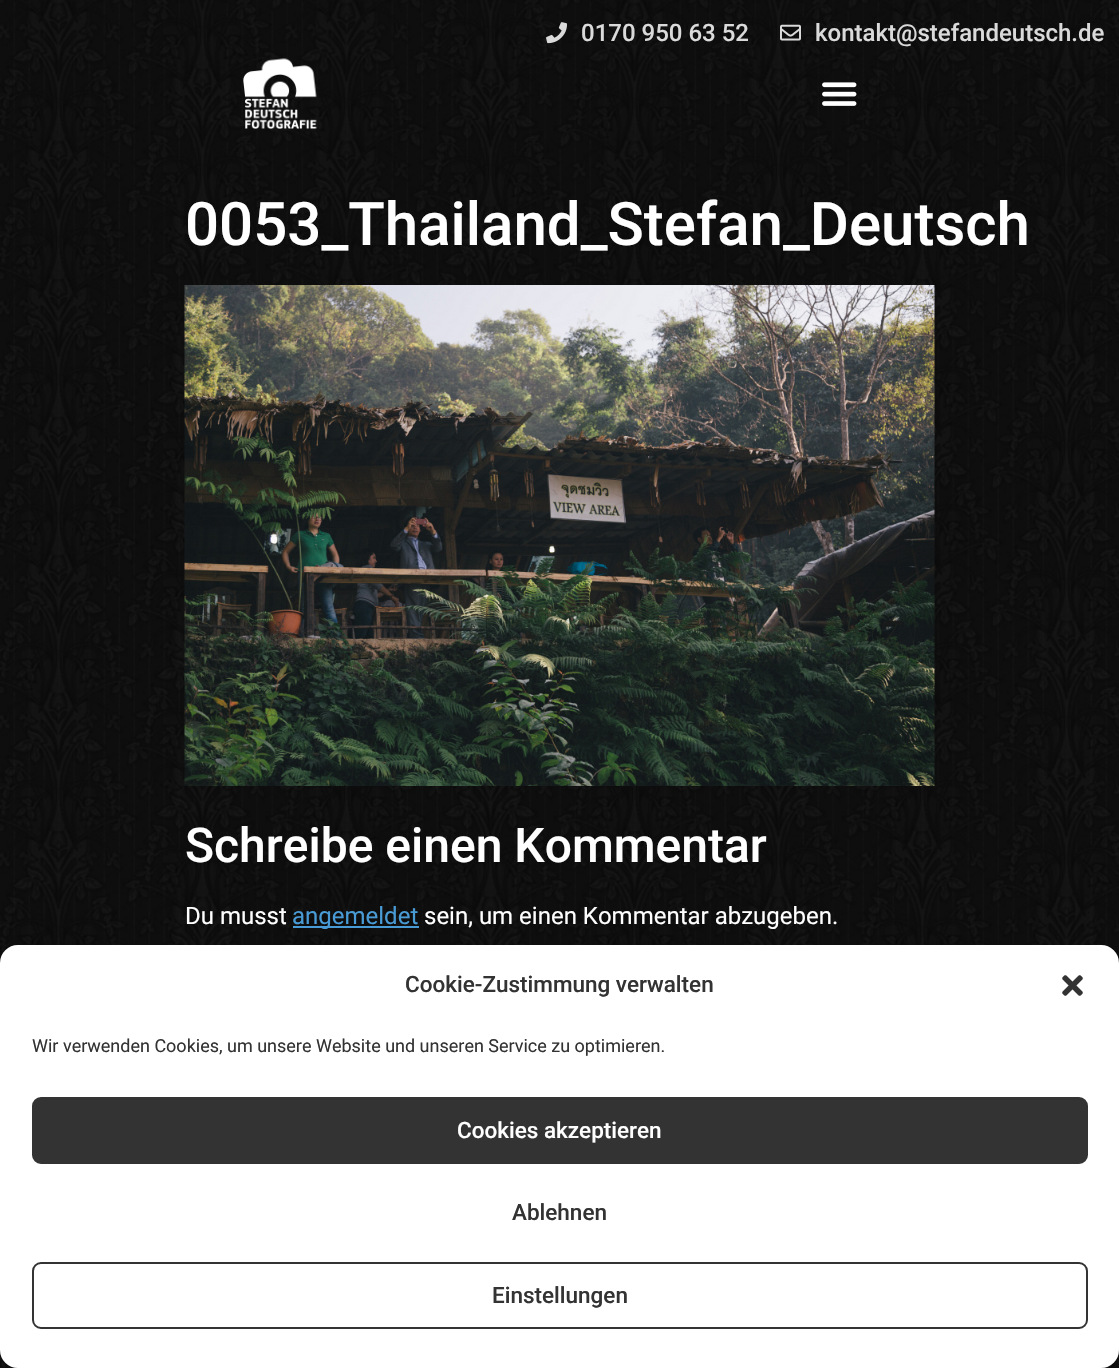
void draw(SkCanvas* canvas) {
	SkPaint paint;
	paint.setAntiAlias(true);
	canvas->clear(0xffffffff);
	canvas->drawImageRect(SkImages::DeferredFromEncodedData(SkData::MakeFromFileName("img1.png")), SkRect::MakeXYWH(0, 0, 1119, 1368), SkSamplingOptions());
	canvas->drawImageRect(SkImages::DeferredFromEncodedData(SkData::MakeFromFileName("img2.png")), SkRect::MakeXYWH(546, 22, 21, 22), SkSamplingOptions());
	SkFont f1(fontMgr->matchFamilyStyle("Roboto", SkFontStyle(500, SkFontStyle::kNormal_Width, SkFontStyle::kUpright_Slant)), 24);
	f1.setSubpixel(true);
	paint.setColor(0xffdadada);
	canvas->drawString("0170 950 63 52", 581, 41, f1, paint);
	canvas->drawImageRect(SkImages::DeferredFromEncodedData(SkData::MakeFromFileName("img3.png")), SkRect::MakeXYWH(780, 24, 21, 17), SkSamplingOptions());
	canvas->drawString("kontakt@stefandeutsch.de", 815, 41, f1, paint);
	canvas->drawImageRect(SkImages::DeferredFromEncodedData(SkData::MakeFromFileName("img4.png")), SkRect::MakeXYWH(243, 58, 74, 71), SkSamplingOptions());
	canvas->drawImageRect(SkImages::DeferredFromEncodedData(SkData::MakeFromFileName("img5.png")), SkRect::MakeXYWH(822, 82, 35, 24), SkSamplingOptions());
	SkFont f2(fontMgr->matchFamilyStyle("Roboto", SkFontStyle(500, SkFontStyle::kNormal_Width, SkFontStyle::kUpright_Slant)), 60);
	f2.setSubpixel(true);
	paint.setColor(0xffffffff);
	canvas->drawString("0053_Thailand_Stefan_Deutsch", 185, 245, f2, paint);
	canvas->drawImageRect(SkImages::DeferredFromEncodedData(SkData::MakeFromFileName("img6.png")), SkRect::MakeXYWH(184, 285, 751, 501), SkSamplingOptions());
	SkFont f3(fontMgr->matchFamilyStyle("Roboto", SkFontStyle(500, SkFontStyle::kNormal_Width, SkFontStyle::kUpright_Slant)), 48);
	f3.setSubpixel(true);
	canvas->drawString("Schreibe einen Kommentar", 185, 862, f3, paint);
	SkFont f4(fontMgr->matchFamilyStyle("Roboto", SkFontStyle::Normal()), 24);
	f4.setSubpixel(true);
	canvas->drawString("Du musst", 185, 924, f4, paint);
	paint.setColor(0xff499bd5);
	canvas->drawRect(SkRect::MakeXYWH(293, 926, 126, 2), paint);
	canvas->drawString("angemeldet", 292, 924, f4, paint);
	paint.setColor(0xffffffff);
	canvas->drawString("sein, um einen Kommentar abzugeben.", 424, 924, f4, paint);
	canvas->drawRoundRect(SkRect::MakeXYWH(1, 946, 1117, 421), 17, 17, paint);
	paint.setStroke(true);
	paint.setStrokeWidth(2);
	canvas->drawRoundRect(SkRect::MakeXYWH(1, 946, 1117, 421), 17, 17, paint);
	SkFont f5(fontMgr->matchFamilyStyle("Roboto", SkFontStyle(500, SkFontStyle::kNormal_Width, SkFontStyle::kUpright_Slant)), 22.5);
	f5.setSubpixel(true);
	paint.setStroke(false);
	paint.setColor(0xff333333);
	canvas->drawString("Cookie-Zustimmung verwalten", 405, 992, f5, paint);
	canvas->drawImageRect(SkImages::DeferredFromEncodedData(SkData::MakeFromFileName("img7.png")), SkRect::MakeXYWH(1062, 975, 21, 21), SkSamplingOptions());
	SkFont f6(fontMgr->matchFamilyStyle("Roboto", SkFontStyle::Normal()), 18);
	f6.setSubpixel(true);
	canvas->drawString("Wir verwenden Cookies, um unsere Website und unseren Service zu optimieren.", 32, 1052, f6, paint);
	canvas->drawRoundRect(SkRect::MakeXYWH(33, 1098, 1054, 65), 8, 8, paint);
	paint.setStroke(true);
	canvas->drawRoundRect(SkRect::MakeXYWH(33, 1098, 1054, 65), 8, 8, paint);
	paint.setStroke(false);
	paint.setColor(0xffffffff);
	canvas->drawString("Cookies akzeptieren", 457, 1138, f5, paint);
	paint.setColor(0xff333333);
	canvas->drawString("Ablehnen", 512, 1220, f5, paint);
	paint.setStroke(true);
	canvas->drawRoundRect(SkRect::MakeXYWH(33, 1263, 1054, 65), 8, 8, paint);
	paint.setStroke(false);
	canvas->drawString("Einstellungen", 492, 1303, f5, paint);
}
